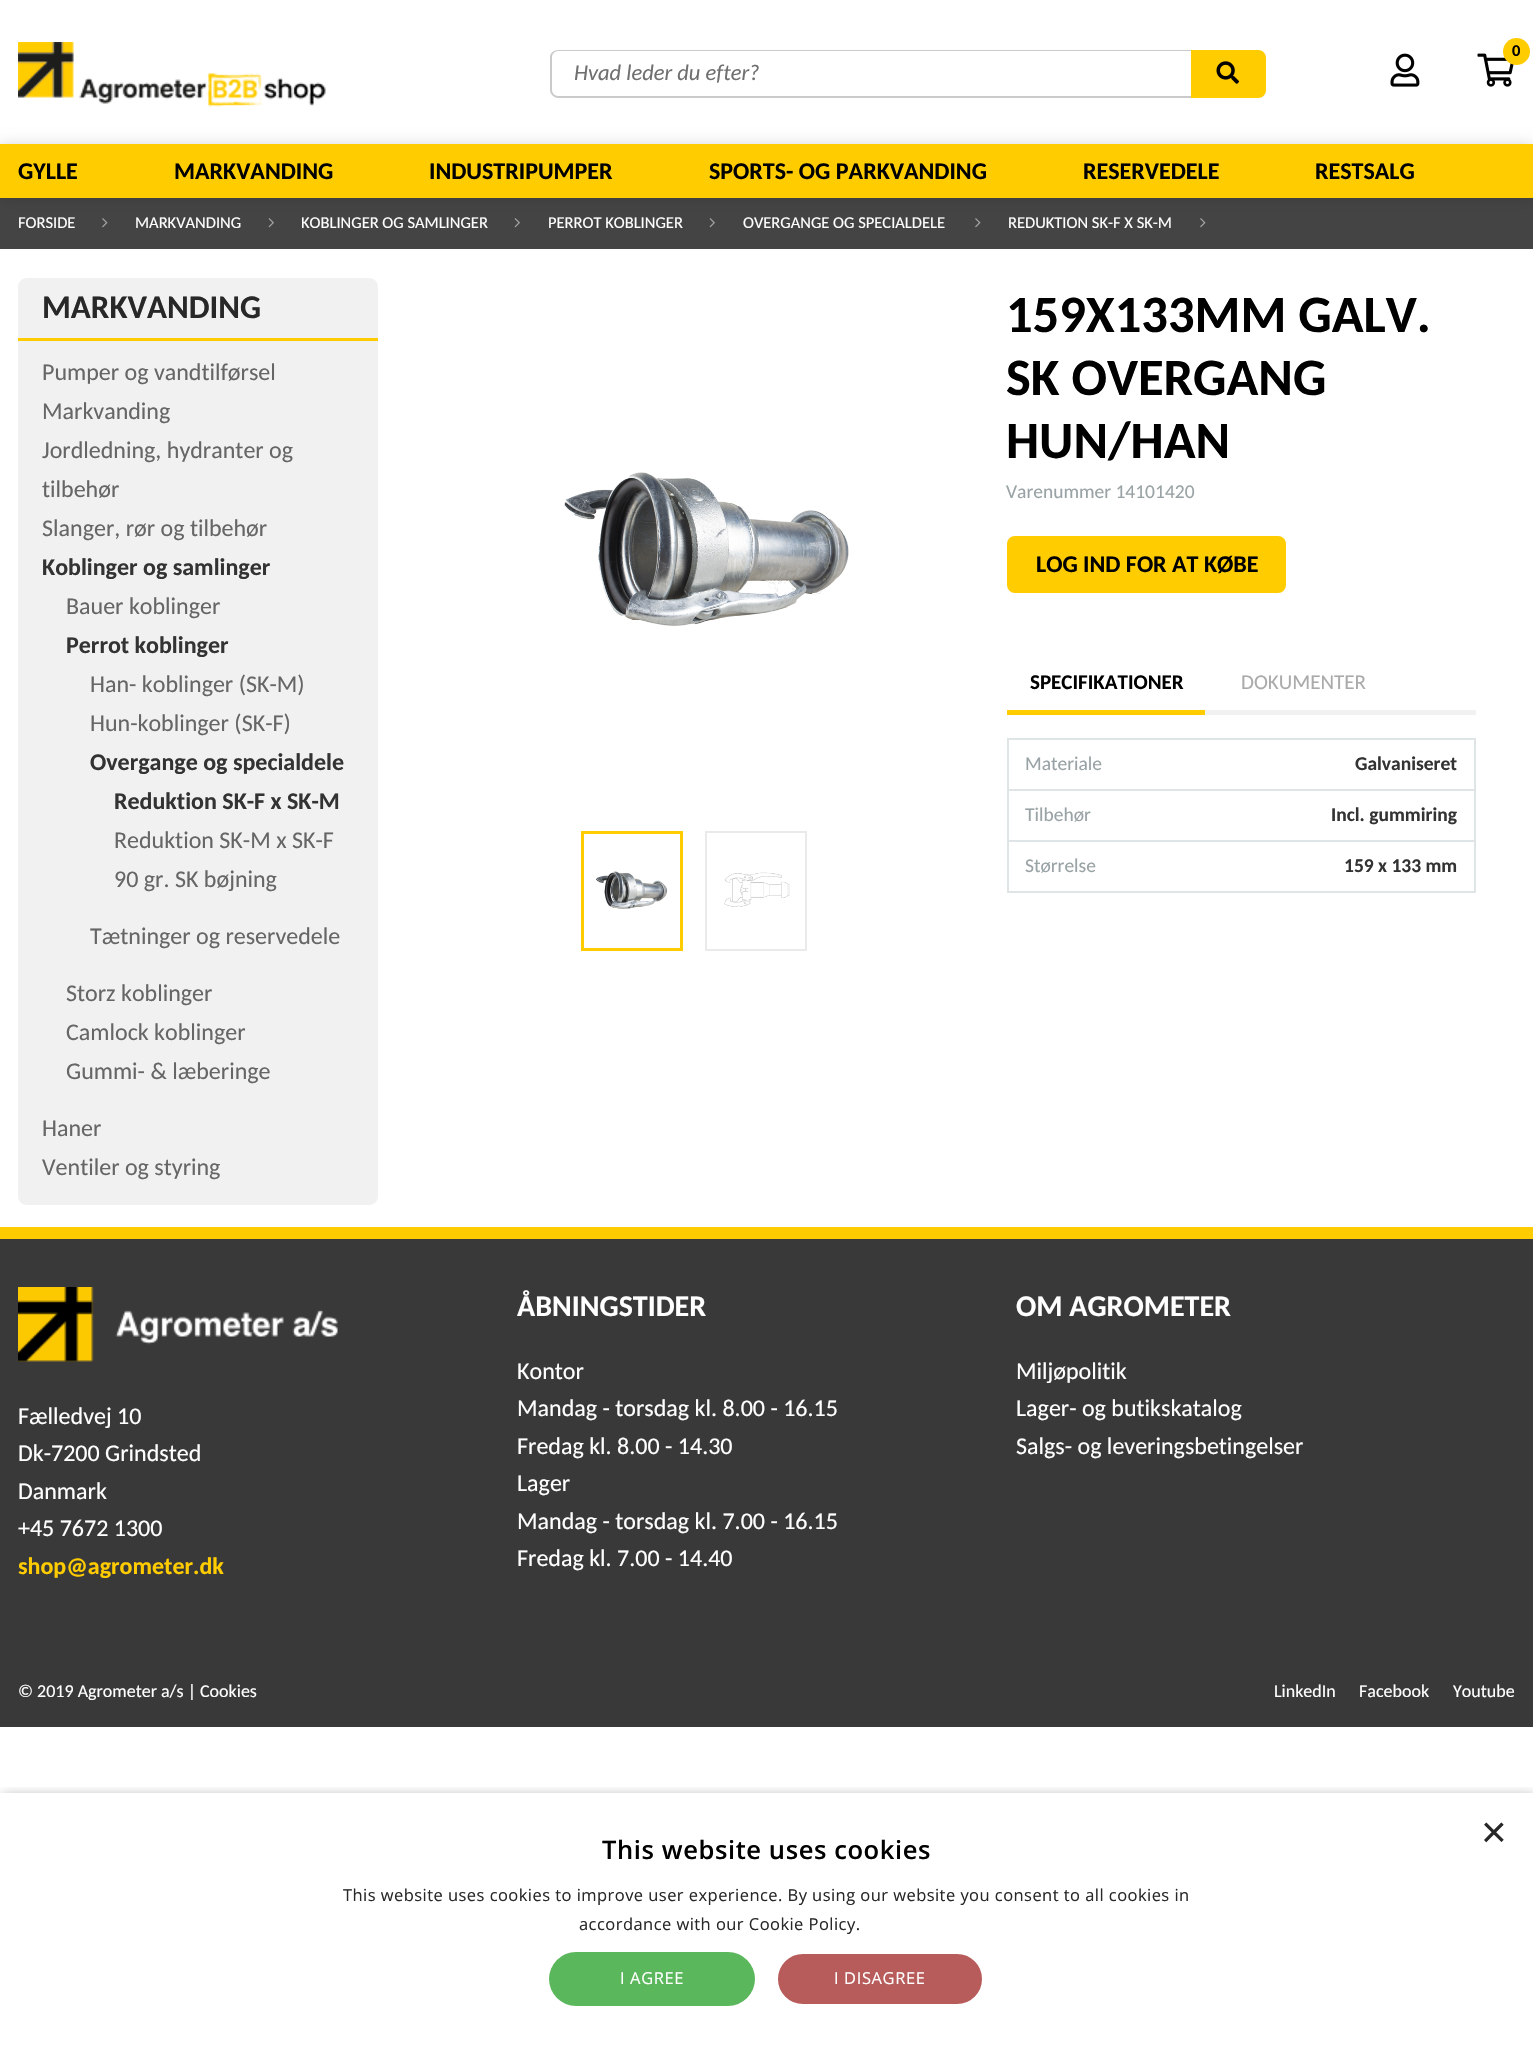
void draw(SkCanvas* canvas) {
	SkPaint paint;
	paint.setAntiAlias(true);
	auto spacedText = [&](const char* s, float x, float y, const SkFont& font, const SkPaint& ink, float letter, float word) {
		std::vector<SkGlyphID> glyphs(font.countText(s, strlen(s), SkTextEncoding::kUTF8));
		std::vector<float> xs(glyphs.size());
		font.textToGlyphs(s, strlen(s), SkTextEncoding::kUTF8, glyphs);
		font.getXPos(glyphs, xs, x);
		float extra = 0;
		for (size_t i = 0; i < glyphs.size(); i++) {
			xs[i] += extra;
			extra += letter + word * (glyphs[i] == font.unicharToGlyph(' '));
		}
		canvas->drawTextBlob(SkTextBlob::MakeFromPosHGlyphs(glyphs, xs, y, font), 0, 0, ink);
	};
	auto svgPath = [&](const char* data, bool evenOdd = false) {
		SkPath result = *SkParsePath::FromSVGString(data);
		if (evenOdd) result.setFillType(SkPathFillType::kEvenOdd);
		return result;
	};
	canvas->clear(0xffffffff);
	canvas->drawImageRect(SkImages::DeferredFromEncodedData(SkData::MakeFromFileName("img1.png")), SkRect::MakeXYWH(18, 42, 308, 65), SkSamplingOptions());
	canvas->drawImageRect(SkImages::DeferredFromEncodedData(SkData::MakeFromFileName("img2.png")), SkRect::MakeXYWH(1477, 53, 37, 34), SkSamplingOptions());
	paint.setColor(0xffffcc00);
	canvas->drawCircle(1516.5, 51.5, 13.5, paint);
	SkFont f1(fontMgr->matchFamilyStyle("Carlito", SkFontStyle::Bold()), 16.5);
	f1.setSubpixel(true);
	paint.setColor(0xff000000);
	canvas->drawString("0", 1512, 56, f1, paint);
	canvas->drawImageRect(SkImages::DeferredFromEncodedData(SkData::MakeFromFileName("img3.png")), SkRect::MakeXYWH(1390, 53, 30, 34), SkSamplingOptions());
	paint.setColor(0xffcacaca);
	canvas->drawPath(svgPath("M558 50H1191V98H558C554 98 550 94 550 90V57C550 53 554 50 558 50ZM558 51H1191V96H558C555 96 552 93 552 90V57C552 54 555 51 558 51Z", true), paint);
	SkFont f2(fontMgr->matchFamilyStyle("Carlito", SkFontStyle::Italic()), 22.5);
	f2.setSubpixel(true);
	paint.setColor(0xff707070);
	canvas->drawString("Hvad leder du efter?", 574, 80, f2, paint);
	paint.setColor(0xffffcc00);
	canvas->drawPath(svgPath("M1191 50H1258C1262.5 50 1266 53.5 1266 58V90C1266 94.5 1262.5 98 1258 98H1191Z"), paint);
	canvas->drawImageRect(SkImages::DeferredFromEncodedData(SkData::MakeFromFileName("img4.png")), SkRect::MakeXYWH(1216, 61, 23, 23), SkSamplingOptions());
	paint.setColor(0xff444444);
	canvas->drawRect(SkRect::MakeXYWH(0, 198, 1533, 51), paint);
	paint.setColor(0x26000000);
	paint.setMaskFilter(SkMaskFilter::MakeBlur(kNormal_SkBlurStyle, 6));
	canvas->drawRect(SkRect::MakeXYWH(0, 144, 1533, 54), paint);
	paint.setMaskFilter(nullptr);
	paint.setColor(0xffffcc00);
	canvas->drawRect(SkRect::MakeXYWH(0, 144, 1533, 54), paint);
	SkFont f3(fontMgr->matchFamilyStyle("Carlito", SkFontStyle::Bold()), 24);
	f3.setSubpixel(true);
	paint.setColor(0xff000000);
	canvas->drawString("GYLLE", 18, 179, f3, paint);
	canvas->drawString("MARKVANDING", 174, 179, f3, paint);
	canvas->drawString("INDUSTRIPUMPER", 429, 179, f3, paint);
	canvas->drawString("SPORTS- OG PARKVANDING", 709, 179, f3, paint);
	canvas->drawString("RESERVEDELE", 1083, 179, f3, paint);
	canvas->drawString("RESTSALG", 1315, 179, f3, paint);
	SkFont f4(fontMgr->matchFamilyStyle("Carlito", SkFontStyle::Normal()), 16.5);
	f4.setSubpixel(true);
	paint.setColor(0xffffffff);
	canvas->drawString("FORSIDE", 18, 228, f4, paint);
	canvas->drawImageRect(SkImages::DeferredFromEncodedData(SkData::MakeFromFileName("img5.png")), SkRect::MakeXYWH(102, 218, 6, 10), SkSamplingOptions());
	canvas->drawString("MARKVANDING", 135, 228, f4, paint);
	canvas->drawImageRect(SkImages::DeferredFromEncodedData(SkData::MakeFromFileName("img6.png")), SkRect::MakeXYWH(268, 218, 6, 10), SkSamplingOptions());
	canvas->drawString("KOBLINGER OG SAMLINGER", 301, 228, f4, paint);
	canvas->drawImageRect(SkImages::DeferredFromEncodedData(SkData::MakeFromFileName("img6.png")), SkRect::MakeXYWH(514, 218, 6, 10), SkSamplingOptions());
	canvas->drawString("PERROT KOBLINGER", 548, 228, f4, paint);
	canvas->drawImageRect(SkImages::DeferredFromEncodedData(SkData::MakeFromFileName("img6.png")), SkRect::MakeXYWH(709, 218, 6, 10), SkSamplingOptions());
	canvas->drawString("OVERGANGE OG SPECIALDELE", 743, 228, f4, paint);
	canvas->drawImageRect(SkImages::DeferredFromEncodedData(SkData::MakeFromFileName("img5.png")), SkRect::MakeXYWH(975, 218, 6, 10), SkSamplingOptions());
	canvas->drawString("REDUKTION SK-F X SK-M", 1008, 228, f4, paint);
	canvas->drawImageRect(SkImages::DeferredFromEncodedData(SkData::MakeFromFileName("img5.png")), SkRect::MakeXYWH(1200, 218, 6, 10), SkSamplingOptions());
	paint.setColor(0xfff1f1f1);
	canvas->drawPath(svgPath("M27 278H369C374 278 378 282 378 287V341H18V287C18 282 22 278 27 278Z"), paint);
	paint.setColor(0xffffcc00);
	canvas->drawRect(SkRect::MakeXYWH(18, 338, 360, 3), paint);
	SkFont f5(fontMgr->matchFamilyStyle("Carlito", SkFontStyle::Bold()), 33);
	f5.setSubpixel(true);
	paint.setColor(0xff282828);
	canvas->drawString("MARKVANDING", 42, 318, f5, paint);
	paint.setColor(0xfff1f1f1);
	canvas->drawPath(svgPath("M18 341H378V1196C378 1201 374 1205 369 1205H27C22 1205 18 1201 18 1196Z"), paint);
	SkFont f6(fontMgr->matchFamilyStyle("Carlito", SkFontStyle::Normal()), 24);
	f6.setSubpixel(true);
	paint.setColor(0xff666666);
	canvas->drawString("Pumper og vandtilførsel", 42, 380, f6, paint);
	canvas->drawString("Markvanding", 42, 419, f6, paint);
	canvas->drawString("Jordledning, hydranter og", 42, 458, f6, paint);
	canvas->drawString("tilbehør", 42, 497, f6, paint);
	canvas->drawString("Slanger, rør og tilbehør", 42, 536, f6, paint);
	paint.setColor(0xff333333);
	canvas->drawString("Koblinger og samlinger", 42, 575, f3, paint);
	paint.setColor(0xff666666);
	canvas->drawString("Bauer koblinger", 66, 614, f6, paint);
	paint.setColor(0xff333333);
	canvas->drawString("Perrot koblinger", 66, 653, f3, paint);
	paint.setColor(0xff666666);
	canvas->drawString("Han- koblinger (SK-M)", 90, 692, f6, paint);
	canvas->drawString("Hun-koblinger (SK-F)", 90, 731, f6, paint);
	paint.setColor(0xff333333);
	canvas->drawString("Overgange og specialdele", 90, 770, f3, paint);
	canvas->drawString("Reduktion SK-F x SK-M", 114, 809, f3, paint);
	paint.setColor(0xff666666);
	canvas->drawString("Reduktion SK-M x SK-F", 114, 848, f6, paint);
	canvas->drawString("90 gr. SK bøjning", 114, 887, f6, paint);
	canvas->drawString("Tætninger og reservedele", 90, 944, f6, paint);
	canvas->drawString("Storz koblinger", 66, 1001, f6, paint);
	canvas->drawString("Camlock koblinger", 66, 1040, f6, paint);
	canvas->drawString("Gummi- & læberinge", 66, 1079, f6, paint);
	canvas->drawString("Haner", 42, 1136, f6, paint);
	canvas->drawString("Ventiler og styring", 42, 1175, f6, paint);
	canvas->drawImageRect(SkImages::DeferredFromEncodedData(SkData::MakeFromFileName("img7.png")), SkRect::MakeXYWH(564, 472, 285, 154), SkSamplingOptions());
	paint.setStroke(true);
	paint.setStrokeWidth(3);
	paint.setColor(0xffffcc00);
	canvas->drawRect(SkRect::MakeXYWH(582.5, 832.5, 99, 117), paint);
	canvas->drawImageRect(SkImages::DeferredFromEncodedData(SkData::MakeFromFileName("img8.png")), SkRect::MakeXYWH(596, 871, 72, 38), SkSamplingOptions());
	paint.setStrokeWidth(2);
	paint.setColor(0xffeaeaea);
	canvas->drawRect(SkRect::MakeXYWH(706, 832, 100, 118), paint);
	canvas->drawImageRect(SkImages::DeferredFromEncodedData(SkData::MakeFromFileName("img9.png")), SkRect::MakeXYWH(724, 872, 66, 35), SkSamplingOptions());
	SkFont f7(fontMgr->matchFamilyStyle("Carlito", SkFontStyle::Bold()), 52.5);
	f7.setSubpixel(true);
	paint.setStroke(false);
	paint.setColor(0xff000000);
	canvas->drawString("159X133MM GALV.", 1006, 332, f7, paint);
	canvas->drawString("SK OVERGANG", 1006, 395, f7, paint);
	canvas->drawString("HUN/HAN", 1006, 458, f7, paint);
	SkFont f8(fontMgr->matchFamilyStyle("Carlito", SkFontStyle::Normal()), 19.5);
	f8.setSubpixel(true);
	paint.setColor(0xff99a2a5);
	canvas->drawString("Varenummer 14101420", 1006, 498, f8, paint);
	paint.setColor(0xffffcc00);
	canvas->drawRoundRect(SkRect::MakeXYWH(1007, 536, 279, 57), 8, 8, paint);
	paint.setColor(0xff000000);
	canvas->drawString("LOG IND FOR AT KØBE", 1036, 572, f3, paint);
	paint.setColor(0xffffcc00);
	canvas->drawRect(SkRect::MakeXYWH(1007, 710, 198, 5), paint);
	SkFont f9(fontMgr->matchFamilyStyle("Carlito", SkFontStyle::Bold()), 21);
	f9.setSubpixel(true);
	paint.setColor(0xff000000);
	canvas->drawString("SPECIFIKATIONER", 1030, 689, f9, paint);
	paint.setColor(0xfff1f1f1);
	canvas->drawRect(SkRect::MakeXYWH(1205, 710, 271, 5), paint);
	SkFont f10(fontMgr->matchFamilyStyle("Carlito", SkFontStyle::Normal()), 21);
	f10.setSubpixel(true);
	paint.setColor(0xffaaaaaa);
	canvas->drawString("DOKUMENTER", 1241, 689, f10, paint);
	paint.setStroke(true);
	paint.setColor(0xffdfe5e7);
	canvas->drawRect(SkRect::MakeXYWH(1008, 739, 467, 153), paint);
	paint.setStroke(false);
	canvas->drawRect(SkRect::MakeXYWH(1008, 789, 467, 2), paint);
	paint.setColor(0xff99a2a5);
	canvas->drawString("Materiale", 1025, 770, f8, paint);
	SkFont f11(fontMgr->matchFamilyStyle("Carlito", SkFontStyle::Bold()), 19.5);
	f11.setSubpixel(true);
	paint.setColor(0xff333333);
	canvas->drawString("Galvaniseret", 1355, 770, f11, paint);
	paint.setColor(0xffdfe5e7);
	canvas->drawRect(SkRect::MakeXYWH(1008, 840, 467, 2), paint);
	paint.setColor(0xff99a2a5);
	canvas->drawString("Tilbehør", 1025, 821, f8, paint);
	paint.setColor(0xff333333);
	canvas->drawString("Incl. gummiring", 1331, 821, f11, paint);
	paint.setColor(0xff99a2a5);
	canvas->drawString("Størrelse", 1025, 872, f8, paint);
	paint.setColor(0xff333333);
	canvas->drawString("159 x 133 mm", 1344, 872, f11, paint);
	paint.setColor(0xff393939);
	canvas->drawRect(SkRect::MakeXYWH(0, 1239, 1533, 488), paint);
	paint.setColor(0xffffcc00);
	canvas->drawRect(SkRect::MakeXYWH(0, 1227, 1533, 12), paint);
	SkFont f12(fontMgr->matchFamilyStyle("Carlito", SkFontStyle::Bold()), 30);
	f12.setSubpixel(true);
	paint.setColor(0xffffffff);
	canvas->drawString("ÅBNINGSTIDER", 517, 1316, f12, paint);
	canvas->drawString("Kontor", 517, 1379, f6, paint);
	canvas->drawString("Mandag - torsdag kl. 8.00 - 16.15", 517, 1416, f6, paint);
	canvas->drawString("Fredag kl. 8.00 - 14.30", 517, 1454, f6, paint);
	canvas->drawString("Lager", 517, 1491, f6, paint);
	canvas->drawString("Mandag - torsdag kl. 7.00 - 16.15", 517, 1529, f6, paint);
	canvas->drawString("Fredag kl. 7.00 - 14.40", 517, 1566, f6, paint);
	canvas->drawString("OM AGROMETER", 1016, 1316, f12, paint);
	canvas->drawString("Miljøpolitik", 1016, 1379, f6, paint);
	canvas->drawString("Lager- og butikskatalog", 1016, 1416, f6, paint);
	canvas->drawString("Salgs- og leveringsbetingelser", 1016, 1454, f6, paint);
	canvas->drawImageRect(SkImages::DeferredFromEncodedData(SkData::MakeFromFileName("img10.png")), SkRect::MakeXYWH(18, 1287, 320, 75), SkSamplingOptions());
	canvas->drawString("Fælledvej 10", 18, 1424, f6, paint);
	canvas->drawString("Dk-7200 Grindsted", 18, 1461, f6, paint);
	canvas->drawString("Danmark", 18, 1499, f6, paint);
	canvas->drawString("+45 7672 1300", 18, 1536, f6, paint);
	paint.setColor(0xffffcc00);
	canvas->drawString("shop@agrometer.dk", 18, 1574, f3, paint);
	SkFont f13(fontMgr->matchFamilyStyle("Carlito", SkFontStyle::Normal()), 18);
	f13.setSubpixel(true);
	paint.setColor(0xffffffff);
	canvas->drawString("© 2019 Agrometer a/s | Cookies", 18, 1697, f13, paint);
	canvas->drawString("LinkedIn", 1274, 1697, f13, paint);
	canvas->drawString("Facebook", 1359, 1697, f13, paint);
	canvas->drawString("Youtube", 1453, 1697, f13, paint);
	canvas->save();
	canvas->clipRect(SkRect::MakeXYWH(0, 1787, 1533, 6));
	paint.setColor(0x59000000);
	paint.setMaskFilter(SkMaskFilter::MakeBlur(kNormal_SkBlurStyle, 6));
	canvas->drawRect(SkRect::MakeXYWH(2, 1796, 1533, 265), paint);
	paint.setMaskFilter(nullptr);
	canvas->restore();
	SkFont f14(fontMgr->matchFamilyStyle("Liberation Sans", SkFontStyle::Normal()), 44);
	f14.setSubpixel(true);
	paint.setColor(0xff282828);
	canvas->drawString("×", 1481, 1847, f14, paint);
	SkFont f15(fontMgr->matchFamilyStyle("Open Sans", SkFontStyle(600, SkFontStyle::kNormal_Width, SkFontStyle::kUpright_Slant)), 25.5);
	f15.setSubpixel(true);
	paint.setColor(0xff000000);
	spacedText("This website uses cookies", 602, 1859, f15, paint, 0.6, 0);
	SkFont f16(fontMgr->matchFamilyStyle("Open Sans", SkFontStyle::Normal()), 16.5);
	f16.setSubpixel(true);
	paint.setColor(0xff282828);
	spacedText("This website uses cookies to improve user experience. By using our website you consent to all cookies in", 343, 1901, f16, paint, 0.45, 0);
	spacedText("accordance with our Cookie Policy.", 579, 1930, f16, paint, 0.45, 0);
	paint.setColor(0xff5bb75b);
	canvas->drawRoundRect(SkRect::MakeXYWH(549, 1952, 206, 54), 27, 27, paint);
	paint.setColor(0xffffffff);
	spacedText("I AGREE", 620, 1984, f16, paint, 0.6, 0);
	paint.setColor(0xffb75b5b);
	canvas->drawRoundRect(SkRect::MakeXYWH(777, 1953, 206, 52), 26, 26, paint);
	paint.setStroke(true);
	paint.setColor(0xffffffff);
	canvas->drawRoundRect(SkRect::MakeXYWH(777, 1953, 206, 52), 26, 26, paint);
	paint.setStroke(false);
	spacedText("I DISAGREE", 834, 1984, f16, paint, 0.6, 0);
}
